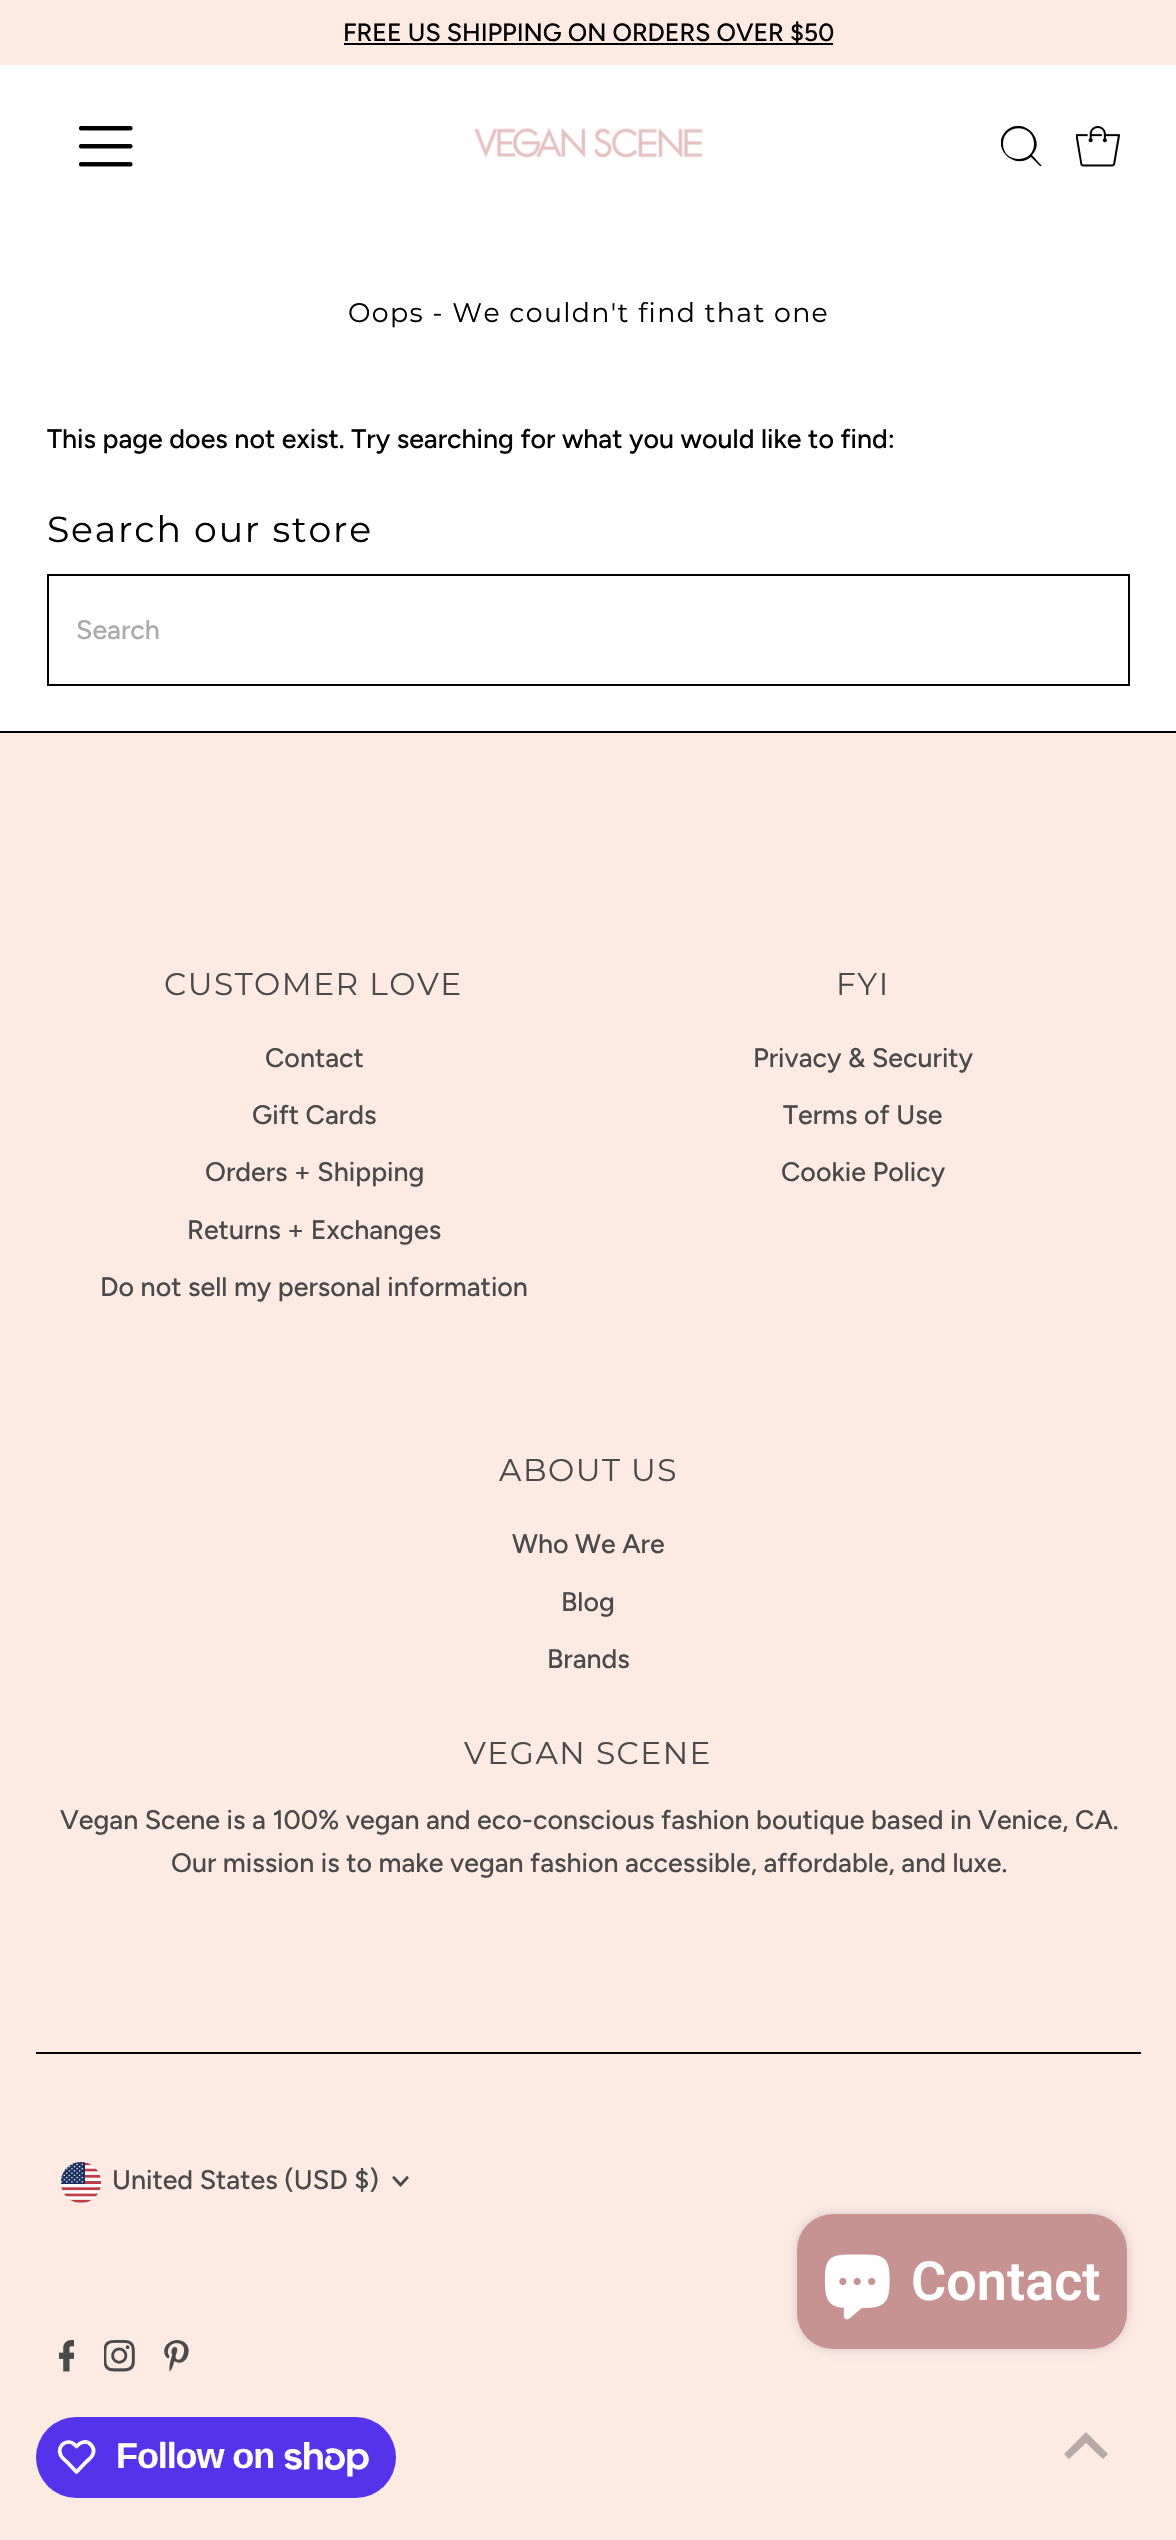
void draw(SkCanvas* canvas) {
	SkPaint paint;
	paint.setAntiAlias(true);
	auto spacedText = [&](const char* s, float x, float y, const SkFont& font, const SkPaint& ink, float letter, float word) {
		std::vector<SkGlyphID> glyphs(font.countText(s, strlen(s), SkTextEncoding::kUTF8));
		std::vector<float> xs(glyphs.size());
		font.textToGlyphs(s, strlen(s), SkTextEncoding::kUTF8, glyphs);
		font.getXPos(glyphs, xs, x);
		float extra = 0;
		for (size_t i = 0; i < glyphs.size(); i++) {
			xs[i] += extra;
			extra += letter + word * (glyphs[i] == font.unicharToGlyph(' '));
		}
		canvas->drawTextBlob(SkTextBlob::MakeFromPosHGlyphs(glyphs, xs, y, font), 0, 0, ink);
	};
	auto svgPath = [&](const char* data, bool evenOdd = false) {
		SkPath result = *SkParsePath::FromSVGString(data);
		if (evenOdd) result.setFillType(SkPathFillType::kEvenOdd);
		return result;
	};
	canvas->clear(0xffffffff);
	paint.setColor(0xfffceae3);
	canvas->drawRect(SkRect::MakeXYWH(0, 0, 1176, 65), paint);
	paint.setColor(0xff000000);
	canvas->drawRect(SkRect::MakeXYWH(344, 43, 489, 2), paint);
	SkFont f1(fontMgr->matchFamilyStyle("Figtree", SkFontStyle(500, SkFontStyle::kNormal_Width, SkFontStyle::kUpright_Slant)), 24.9);
	f1.setSubpixel(true);
	canvas->drawString("FREE US SHIPPING ON ORDERS OVER $50", 343, 41, f1, paint);
	canvas->drawImageRect(SkImages::DeferredFromEncodedData(SkData::MakeFromFileName("img1.png")), SkRect::MakeXYWH(79, 126, 54, 41), SkSamplingOptions());
	canvas->drawImageRect(SkImages::DeferredFromEncodedData(SkData::MakeFromFileName("img2.png")), SkRect::MakeXYWH(474, 128, 229, 30), SkSamplingOptions());
	canvas->save();
	canvas->clipRect(SkRect::MakeXYWH(1001, 126, 41, 41));
	canvas->drawPath(svgPath("M1041 165L1032 155C1047 140 1023 115 1006 131C990 147 1014 171 1031 157L1040 166C1041 167 1042 165 1041 165ZM1003 144C1003 123 1034 123 1034 144C1034 164 1003 164 1003 144Z"), paint);
	canvas->restore();
	canvas->drawImageRect(SkImages::DeferredFromEncodedData(SkData::MakeFromFileName("img3.png")), SkRect::MakeXYWH(1076, 126, 44, 41), SkSamplingOptions());
	SkFont f2(fontMgr->matchFamilyStyle("Montserrat", SkFontStyle::Normal()), 26.8);
	f2.setSubpixel(true);
	spacedText("Oops - We couldn't find that one", 348, 322, f2, paint, 1.35, 0);
	SkFont f3(fontMgr->matchFamilyStyle("Figtree", SkFontStyle(500, SkFontStyle::kNormal_Width, SkFontStyle::kUpright_Slant)), 26.8);
	f3.setSubpixel(true);
	canvas->drawString("This page does not exist. Try searching for what you would like to find:", 47, 448, f3, paint);
	SkFont f4(fontMgr->matchFamilyStyle("Montserrat", SkFontStyle::Normal()), 36.25);
	f4.setSubpixel(true);
	spacedText("Search our store", 47, 542, f4, paint, 1.8, 0);
	paint.setStroke(true);
	paint.setStrokeWidth(2);
	canvas->drawRect(SkRect::MakeXYWH(48, 575, 1081, 110), paint);
	paint.setStroke(false);
	paint.setColor(0xffaaaaaa);
	canvas->drawString("Search", 76, 639, f3, paint);
	paint.setColor(0xfffceae3);
	canvas->drawRect(SkRect::MakeXYWH(0, 733, 1176, 1807), paint);
	paint.setColor(0xff000000);
	canvas->drawRect(SkRect::MakeXYWH(0, 731, 1176, 2), paint);
	SkFont f5(fontMgr->matchFamilyStyle("Montserrat", SkFontStyle::Normal()), 31.25);
	f5.setSubpixel(true);
	paint.setColor(0xff4a4a4a);
	spacedText("CUSTOMER LOVE", 164, 995, f5, paint, 1.5, 0);
	canvas->drawString("Contact", 265, 1067, f3, paint);
	canvas->drawString("Gift Cards", 252, 1124, f3, paint);
	canvas->drawString("Orders + Shipping", 205, 1181, f3, paint);
	canvas->drawString("Returns + Exchanges", 187, 1239, f3, paint);
	canvas->drawString("Do not sell my personal information", 100, 1296, f3, paint);
	spacedText("FYI", 836, 995, f5, paint, 1.5, 0);
	canvas->drawString("Privacy & Security", 753, 1067, f3, paint);
	canvas->drawString("Terms of Use", 783, 1124, f3, paint);
	canvas->drawString("Cookie Policy", 781, 1181, f3, paint);
	spacedText("ABOUT US", 499, 1481, f5, paint, 1.5, 0);
	canvas->drawString("Who We Are", 512, 1553, f3, paint);
	canvas->drawString("Blog", 561, 1611, f3, paint);
	canvas->drawString("Brands", 547, 1668, f3, paint);
	spacedText("VEGAN SCENE", 464, 1764, f5, paint, 1.5, 0);
	canvas->drawString("Vegan Scene is a 100% vegan and eco-conscious fashion boutique based in Venice, CA.", 60, 1829, f3, paint);
	canvas->drawString("Our mission is to make vegan fashion accessible, affordable, and luxe.", 171, 1872, f3, paint);
	paint.setColor(0xff000000);
	canvas->drawRect(SkRect::MakeXYWH(36, 2052, 1105, 2), paint);
	canvas->drawImageRect(SkImages::DeferredFromEncodedData(SkData::MakeFromFileName("img4.png")), SkRect::MakeXYWH(61, 2162, 40, 41), SkSamplingOptions());
	paint.setColor(0xff4a4a4a);
	canvas->drawString("United States (USD $)", 112, 2189, f3, paint);
	canvas->drawImageRect(SkImages::DeferredFromEncodedData(SkData::MakeFromFileName("img5.png")), SkRect::MakeXYWH(392, 2176, 17, 11), SkSamplingOptions());
	canvas->drawImageRect(SkImages::DeferredFromEncodedData(SkData::MakeFromFileName("img6.png")), SkRect::MakeXYWH(59, 2340, 15, 32), SkSamplingOptions());
	canvas->drawImageRect(SkImages::DeferredFromEncodedData(SkData::MakeFromFileName("img7.png")), SkRect::MakeXYWH(104, 2340, 31, 32), SkSamplingOptions());
	canvas->drawImageRect(SkImages::DeferredFromEncodedData(SkData::MakeFromFileName("img8.png")), SkRect::MakeXYWH(164, 2340, 25, 32), SkSamplingOptions());
	paint.setColor(0xff5433eb);
	canvas->drawRoundRect(SkRect::MakeXYWH(36, 2417, 360, 81), 40.5, 40.5, paint);
	paint.setStroke(true);
	paint.setStrokeWidth(3.8);
	paint.setStrokeJoin(SkPaint::kRound_Join);
	paint.setColor(0xffffffff);
	canvas->drawPath(svgPath("M74.5 2444.5L76.5 2446.5C78 2445 79.5 2443 82 2442.5C89 2440 95.5 2447.5 93 2454C91.5 2457.5 88.5 2460 86 2462L76.5 2472L67 2462C64.5 2460 61.5 2457.5 60.5 2454.5C56.5 2445.5 68 2438 74.5 2444.5Z"), paint);
	SkFont f6(fontMgr->matchFamilyStyle("Liberation Sans", SkFontStyle::Bold()), 36);
	f6.setSubpixel(true);
	paint.setStroke(false);
	spacedText("Follow on", 116, 2468, f6, paint, -1.1, 0);
	canvas->drawImageRect(SkImages::DeferredFromEncodedData(SkData::MakeFromFileName("img9.png")), SkRect::MakeXYWH(284, 2442, 85, 35), SkSamplingOptions());
	paint.setColor(0xffb5aaa6);
	canvas->drawPath(svgPath("M1086 2432L1064 2454L1069 2459L1086 2443L1103 2459L1108 2454Z"), paint);
	paint.setColor(0x26000000);
	paint.setMaskFilter(SkMaskFilter::MakeBlur(kNormal_SkBlurStyle, 5.5));
	canvas->drawRoundRect(SkRect::MakeXYWH(797, 2214, 330, 135), 36, 36, paint);
	paint.setMaskFilter(nullptr);
	paint.setColor(0xffc79292);
	canvas->drawRoundRect(SkRect::MakeXYWH(797, 2214, 330, 135), 36, 36, paint);
	canvas->drawImageRect(SkImages::DeferredFromEncodedData(SkData::MakeFromFileName("img10.png")), SkRect::MakeXYWH(824, 2254, 66, 66), SkSamplingOptions());
	SkFont f7(fontMgr->matchFamilyStyle("Roboto", SkFontStyle(600, SkFontStyle::kNormal_Width, SkFontStyle::kUpright_Slant)), 54);
	f7.setSubpixel(true);
	paint.setColor(0xffffffff);
	canvas->drawString("Contact", 911, 2300, f7, paint);
}
